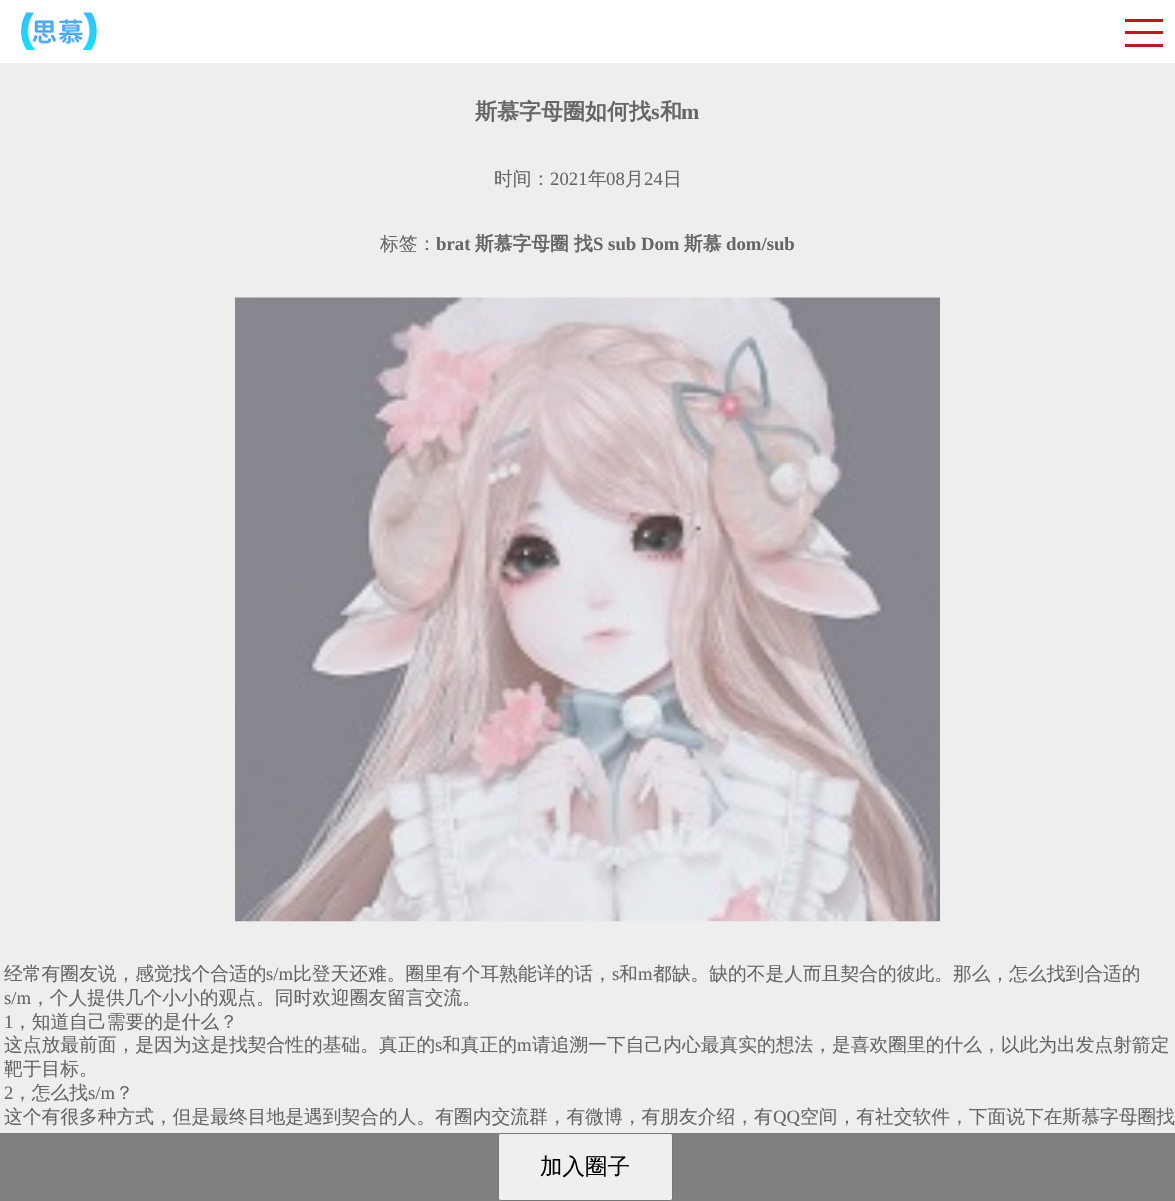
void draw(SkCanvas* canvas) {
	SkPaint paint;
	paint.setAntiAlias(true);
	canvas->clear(0xffeeeeee);
	paint.setColor(0xffffffff);
	canvas->drawRect(SkRect::MakeXYWH(0, 0, 1175, 63), paint);
	canvas->drawImageRect(SkImages::DeferredFromEncodedData(SkData::MakeFromFileName("img1.png")), SkRect::MakeXYWH(21, 12, 76, 38), SkSamplingOptions());
	paint.setColor(0xffc9141e);
	canvas->drawRect(SkRect::MakeXYWH(1125, 19, 38, 3), paint);
	canvas->drawRect(SkRect::MakeXYWH(1125, 31, 38, 3), paint);
	canvas->drawRect(SkRect::MakeXYWH(1125, 44, 38, 3), paint);
	SkFont f1(fontMgr->matchFamilyStyle("WenQuanYi Zen Hei", SkFontStyle::Bold()), 22);
	f1.setSubpixel(true);
	paint.setColor(0xff666666);
	canvas->drawString("斯慕字母圈如何找", 475, 119, f1, paint);
	SkFont f2(fontMgr->matchFamilyStyle("Liberation Serif", SkFontStyle::Bold()), 22);
	f2.setSubpixel(true);
	canvas->drawString("s", 651, 119, f2, paint);
	canvas->drawString("和", 660, 119, f1, paint);
	canvas->drawString("m", 681, 119, f2, paint);
	SkFont f3(fontMgr->matchFamilyStyle("WenQuanYi Zen Hei", SkFontStyle(500, SkFontStyle::kNormal_Width, SkFontStyle::kUpright_Slant)), 18.75);
	f3.setSubpixel(true);
	canvas->drawString("时间：", 494, 185, f3, paint);
	SkFont f4(fontMgr->matchFamilyStyle("Liberation Serif", SkFontStyle::Normal()), 18.75);
	f4.setSubpixel(true);
	canvas->drawString("2021", 550, 185, f4, paint);
	canvas->drawString("年", 588, 185, f3, paint);
	canvas->drawString("08", 606, 185, f4, paint);
	canvas->drawString("月", 625, 185, f3, paint);
	canvas->drawString("24", 644, 185, f4, paint);
	canvas->drawString("日", 663, 185, f3, paint);
	canvas->drawString("标签：", 380, 250, f3, paint);
	SkFont f5(fontMgr->matchFamilyStyle("Liberation Serif", SkFontStyle::Bold()), 18.75);
	f5.setSubpixel(true);
	canvas->drawString("brat", 436, 250, f5, paint);
	SkFont f6(fontMgr->matchFamilyStyle("WenQuanYi Zen Hei", SkFontStyle::Bold()), 18.75);
	f6.setSubpixel(true);
	canvas->drawString("斯慕字母圈", 475, 250, f6, paint);
	canvas->drawString("找", 574, 250, f6, paint);
	canvas->drawString("S sub Dom", 593, 250, f5, paint);
	canvas->drawString("斯慕", 684, 250, f6, paint);
	canvas->drawString("dom/sub", 726, 250, f5, paint);
	canvas->drawImageRect(SkImages::DeferredFromEncodedData(SkData::MakeFromFileName("img2.png")), SkRect::MakeXYWH(235, 297, 705, 625), SkSamplingOptions());
	canvas->drawString("经常有圈友说，感觉找个合适的", 4, 980, f3, paint);
	canvas->drawString("s/m", 266, 980, f4, paint);
	canvas->drawString("比登天还难。圈里有个耳熟能详的话，", 293, 980, f3, paint);
	canvas->drawString("s", 612, 980, f4, paint);
	canvas->drawString("和", 619, 980, f3, paint);
	canvas->drawString("m", 638, 980, f4, paint);
	canvas->drawString("都缺。缺的不是人而且契合的彼此。那么，怎么找到合适的", 653, 980, f3, paint);
	canvas->drawString("s/m", 4, 1004, f4, paint);
	canvas->drawString("，个人提供几个小小的观点。同时欢迎圈友留言交流。", 31, 1004, f3, paint);
	canvas->drawString("1", 4, 1028, f4, paint);
	canvas->drawString("，知道自己需要的是什么？", 13, 1028, f3, paint);
	canvas->drawString("这点放最前面，是因为这是找契合性的基础。真正的", 4, 1051, f3, paint);
	canvas->drawString("s", 435, 1051, f4, paint);
	canvas->drawString("和真正的", 442, 1051, f3, paint);
	canvas->drawString("m", 517, 1051, f4, paint);
	canvas->drawString("请追溯一下自己内心最真实的想法，是喜欢圈里的什么，以此为出发点射箭定", 532, 1051, f3, paint);
	canvas->drawString("靶于目标。", 4, 1075, f3, paint);
	canvas->drawString("2", 4, 1099, f4, paint);
	canvas->drawString("，怎么找", 13, 1099, f3, paint);
	canvas->drawString("s/m", 88, 1099, f4, paint);
	canvas->drawString("？", 115, 1099, f3, paint);
	canvas->drawString("这个有很多种方式，但是最终目地是遇到契合的人。有圈内交流群，有微博，有朋友介绍，有", 4, 1123, f3, paint);
	canvas->drawString("QQ", 773, 1123, f4, paint);
	canvas->drawString("空间，有社交软件，下面说下在斯慕字母圈找", 800, 1123, f3, paint);
	paint.setColor(0xff808080);
	canvas->drawRect(SkRect::MakeXYWH(0, 1133, 1175, 68), paint);
	paint.setColor(0xffefefef);
	canvas->drawRoundRect(SkRect::MakeXYWH(498.5, 1133.5, 174, 67), 2, 2, paint);
	paint.setStroke(true);
	paint.setStrokeWidth(1);
	paint.setColor(0xff767676);
	canvas->drawRoundRect(SkRect::MakeXYWH(498.5, 1133.5, 174, 67), 2, 2, paint);
	SkFont f7(fontMgr->matchFamilyStyle("WenQuanYi Zen Hei", SkFontStyle(500, SkFontStyle::kNormal_Width, SkFontStyle::kUpright_Slant)), 22.5);
	f7.setSubpixel(true);
	paint.setStroke(false);
	paint.setColor(0xff000000);
	canvas->drawString("加入圈子", 540, 1174, f7, paint);
}
